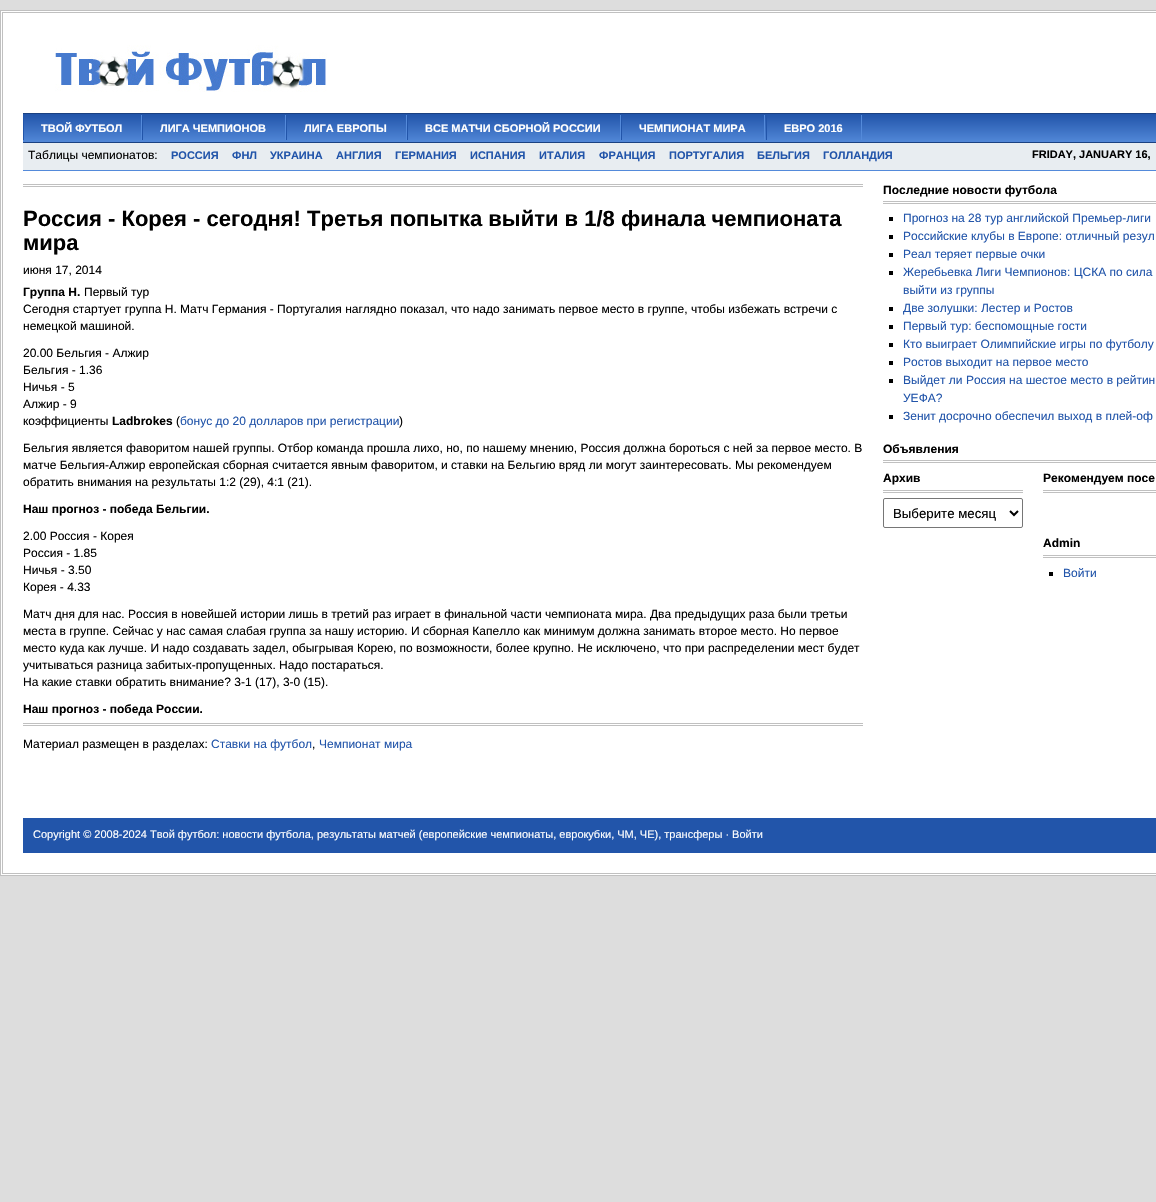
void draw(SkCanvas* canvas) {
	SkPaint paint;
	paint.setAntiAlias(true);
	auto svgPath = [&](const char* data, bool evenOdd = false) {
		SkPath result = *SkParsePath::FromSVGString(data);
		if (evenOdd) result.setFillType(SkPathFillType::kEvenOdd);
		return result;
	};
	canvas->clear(0xffdddddd);
	paint.setColor(0xffffffff);
	canvas->drawRect(SkRect::MakeXYWH(0.5, 10.5, 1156, 865), paint);
	paint.setStroke(true);
	paint.setStrokeWidth(1);
	paint.setColor(0xffc0c0c0);
	canvas->drawRect(SkRect::MakeXYWH(0.5, 10.5, 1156, 865), paint);
	canvas->drawRect(SkRect::MakeXYWH(2.5, 12.5, 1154, 861), paint);
	canvas->drawImageRect(SkImages::DeferredFromEncodedData(SkData::MakeFromFileName("img1.png")), SkRect::MakeXYWH(55, 45, 272, 47), SkSamplingOptions());
	canvas->drawImageRect(SkImages::DeferredFromEncodedData(SkData::MakeFromFileName("img2.png")), SkRect::MakeXYWH(23, 114, 1133, 28), SkSamplingOptions());
	paint.setStroke(false);
	paint.setColor(0xff1a4182);
	canvas->drawRect(SkRect::MakeXYWH(23, 113, 1133, 1), paint);
	canvas->drawRect(SkRect::MakeXYWH(23, 142, 1133, 1), paint);
	SkFont f1(fontMgr->matchFamilyStyle("Liberation Sans", SkFontStyle::Bold()), 11);
	f1.setSubpixel(true);
	paint.setColor(0xffffffff);
	canvas->drawString("ТВОЙ ФУТБОЛ", 41, 132, f1, paint);
	paint.setColor(0xff548ada);
	canvas->drawRect(SkRect::MakeXYWH(141, 115, 1, 25), paint);
	paint.setColor(0xff2255aa);
	canvas->drawRect(SkRect::MakeXYWH(23, 115, 1, 25), paint);
	paint.setColor(0xffffffff);
	canvas->drawString("ЛИГА ЧЕМПИОНОВ", 160, 132, f1, paint);
	paint.setColor(0xff548ada);
	canvas->drawRect(SkRect::MakeXYWH(285, 115, 1, 25), paint);
	paint.setColor(0xff2255aa);
	canvas->drawRect(SkRect::MakeXYWH(142, 115, 1, 25), paint);
	paint.setColor(0xffffffff);
	canvas->drawString("ЛИГА ЕВРОПЫ", 304, 132, f1, paint);
	paint.setColor(0xff548ada);
	canvas->drawRect(SkRect::MakeXYWH(406, 115, 1, 25), paint);
	paint.setColor(0xff2255aa);
	canvas->drawRect(SkRect::MakeXYWH(286, 115, 1, 25), paint);
	paint.setColor(0xffffffff);
	canvas->drawString("ВСЕ МАТЧИ СБОРНОЙ РОССИИ", 425, 132, f1, paint);
	paint.setColor(0xff548ada);
	canvas->drawRect(SkRect::MakeXYWH(620, 115, 1, 25), paint);
	paint.setColor(0xff2255aa);
	canvas->drawRect(SkRect::MakeXYWH(407, 115, 1, 25), paint);
	paint.setColor(0xffffffff);
	canvas->drawString("ЧЕМПИОНАТ МИРА", 639, 132, f1, paint);
	paint.setColor(0xff548ada);
	canvas->drawRect(SkRect::MakeXYWH(764, 115, 1, 25), paint);
	paint.setColor(0xff2255aa);
	canvas->drawRect(SkRect::MakeXYWH(621, 115, 1, 25), paint);
	paint.setColor(0xffffffff);
	canvas->drawString("ЕВРО 2016", 784, 132, f1, paint);
	paint.setColor(0xff548ada);
	canvas->drawRect(SkRect::MakeXYWH(861, 115, 1, 25), paint);
	paint.setColor(0xff2255aa);
	canvas->drawRect(SkRect::MakeXYWH(766, 115, 1, 25), paint);
	paint.setColor(0xffe8edf1);
	canvas->drawRect(SkRect::MakeXYWH(23, 143, 1133, 27), paint);
	paint.setColor(0xff548ada);
	canvas->drawRect(SkRect::MakeXYWH(23, 170, 1133, 1), paint);
	SkFont f2(fontMgr->matchFamilyStyle("Liberation Sans", SkFontStyle::Normal()), 12);
	f2.setSubpixel(true);
	paint.setColor(0xff000000);
	canvas->drawString("Таблицы чемпионатов:", 28, 159, f2, paint);
	paint.setColor(0xff2255aa);
	canvas->drawString("РОССИЯ", 171, 159, f1, paint);
	canvas->drawString("ФНЛ", 232, 159, f1, paint);
	canvas->drawString("УКРАИНА", 270, 159, f1, paint);
	canvas->drawString("АНГЛИЯ", 336, 159, f1, paint);
	canvas->drawString("ГЕРМАНИЯ", 395, 159, f1, paint);
	canvas->drawString("ИСПАНИЯ", 470, 159, f1, paint);
	canvas->drawString("ИТАЛИЯ", 539, 159, f1, paint);
	canvas->drawString("ФРАНЦИЯ", 599, 159, f1, paint);
	canvas->drawString("ПОРТУГАЛИЯ", 669, 159, f1, paint);
	canvas->drawString("БЕЛЬГИЯ", 757, 159, f1, paint);
	canvas->drawString("ГОЛЛАНДИЯ", 823, 159, f1, paint);
	paint.setColor(0xff000000);
	canvas->drawString("FRIDAY, JANUARY 16,", 1032, 158, f1, paint);
	paint.setColor(0xffc0c0c0);
	canvas->drawRect(SkRect::MakeXYWH(23, 184, 840, 1), paint);
	canvas->drawRect(SkRect::MakeXYWH(23, 186, 840, 1), paint);
	SkFont f3(fontMgr->matchFamilyStyle("Liberation Sans", SkFontStyle::Bold()), 22);
	f3.setSubpixel(true);
	paint.setColor(0xff000000);
	canvas->drawString("Россия - Корея - сегодня! Третья попытка выйти в 1/8 финала чемпионата", 23, 226, f3, paint);
	canvas->drawString("мира", 23, 250, f3, paint);
	canvas->drawString("июня 17, 2014", 23, 274, f2, paint);
	SkFont f4(fontMgr->matchFamilyStyle("Liberation Sans", SkFontStyle::Bold()), 12);
	f4.setSubpixel(true);
	canvas->drawString("Группа Н.", 23, 296, f4, paint);
	canvas->drawString("Первый тур", 84, 296, f2, paint);
	canvas->drawString("Сегодня стартует группа Н. Матч Германия - Португалия наглядно показал, что надо занимать первое место в группе, чтобы избежать встречи с", 23, 313, f2, paint);
	canvas->drawString("немецкой машиной.", 23, 330, f2, paint);
	canvas->drawString("20.00 Бельгия - Алжир", 23, 357, f2, paint);
	canvas->drawString("Бельгия - 1.36", 23, 374, f2, paint);
	canvas->drawString("Ничья - 5", 23, 391, f2, paint);
	canvas->drawString("Алжир - 9", 23, 408, f2, paint);
	canvas->drawString("коэффициенты", 23, 425, f2, paint);
	canvas->drawString("Ladbrokes", 112, 425, f4, paint);
	canvas->drawString("(", 176, 425, f2, paint);
	paint.setColor(0xff2255aa);
	canvas->drawString("бонус до 20 долларов при регистрации", 180, 425, f2, paint);
	paint.setColor(0xff000000);
	canvas->drawString(")", 399, 425, f2, paint);
	canvas->drawString("Бельгия является фаворитом нашей группы. Отбор команда прошла лихо, но, по нашему мнению, Россия должна бороться с ней за первое место. В", 23, 452, f2, paint);
	canvas->drawString("матче Бельгия-Алжир европейская сборная считается явным фаворитом, и ставки на Бельгию вряд ли могут заинтересовать. Мы рекомендуем", 23, 469, f2, paint);
	canvas->drawString("обратить внимания на результаты 1:2 (29), 4:1 (21).", 23, 486, f2, paint);
	canvas->drawString("Наш прогноз - победа Бельгии.", 23, 513, f4, paint);
	canvas->drawString("2.00 Россия - Корея", 23, 540, f2, paint);
	canvas->drawString("Россия - 1.85", 23, 557, f2, paint);
	canvas->drawString("Ничья - 3.50", 23, 574, f2, paint);
	canvas->drawString("Корея - 4.33", 23, 591, f2, paint);
	canvas->drawString("Матч дня для нас. Россия в новейшей истории лишь в третий раз играет в финальной части чемпионата мира. Два предыдущих раза были третьи", 23, 618, f2, paint);
	canvas->drawString("места в группе. Сейчас у нас самая слабая группа за нашу историю. И сборная Капелло как минимум должна занимать второе место. Но первое", 23, 635, f2, paint);
	canvas->drawString("место куда как лучше. И надо создавать задел, обыгрывая Корею, по возможности, более крупно. Не исключено, что при распределении мест будет", 23, 652, f2, paint);
	canvas->drawString("учитываться разница забитых-пропущенных. Надо постараться.", 23, 669, f2, paint);
	canvas->drawString("На какие ставки обратить внимание? 3-1 (17), 3-0 (15).", 23, 686, f2, paint);
	canvas->drawString("Наш прогноз - победа России.", 23, 713, f4, paint);
	paint.setColor(0xffc0c0c0);
	canvas->drawRect(SkRect::MakeXYWH(23, 723, 840, 1), paint);
	canvas->drawRect(SkRect::MakeXYWH(23, 725, 840, 1), paint);
	paint.setColor(0xff000000);
	canvas->drawString("Материал размещен в разделах:", 23, 748, f2, paint);
	paint.setColor(0xff2255aa);
	canvas->drawString("Ставки на футбол", 211, 748, f2, paint);
	paint.setColor(0xff000000);
	canvas->drawString(",", 312, 748, f2, paint);
	paint.setColor(0xff2255aa);
	canvas->drawString("Чемпионат мира", 319, 748, f2, paint);
	paint.setColor(0xffc0c0c0);
	canvas->drawRect(SkRect::MakeXYWH(883, 201, 273, 1), paint);
	canvas->drawRect(SkRect::MakeXYWH(883, 203, 273, 1), paint);
	paint.setColor(0xff000000);
	canvas->drawString("Последние новости футбола", 883, 194, f4, paint);
	canvas->drawRect(SkRect::MakeXYWH(889, 217, 4, 4), paint);
	paint.setColor(0xff2255aa);
	canvas->drawString("Прогноз на 28 тур английской Премьер-лиги", 903, 222, f2, paint);
	paint.setColor(0xff000000);
	canvas->drawRect(SkRect::MakeXYWH(889, 235, 4, 4), paint);
	paint.setColor(0xff2255aa);
	canvas->drawString("Российские клубы в Европе: отличный резул", 903, 240, f2, paint);
	paint.setColor(0xff000000);
	canvas->drawRect(SkRect::MakeXYWH(889, 253, 4, 4), paint);
	paint.setColor(0xff2255aa);
	canvas->drawString("Реал теряет первые очки", 903, 258, f2, paint);
	paint.setColor(0xff000000);
	canvas->drawRect(SkRect::MakeXYWH(889, 271, 4, 4), paint);
	paint.setColor(0xff2255aa);
	canvas->drawString("Жеребьевка Лиги Чемпионов: ЦСКА по сила", 903, 276, f2, paint);
	canvas->drawString("выйти из группы", 903, 294, f2, paint);
	paint.setColor(0xff000000);
	canvas->drawRect(SkRect::MakeXYWH(889, 307, 4, 4), paint);
	paint.setColor(0xff2255aa);
	canvas->drawString("Две золушки: Лестер и Ростов", 903, 312, f2, paint);
	paint.setColor(0xff000000);
	canvas->drawRect(SkRect::MakeXYWH(889, 325, 4, 4), paint);
	paint.setColor(0xff2255aa);
	canvas->drawString("Первый тур: беспомощные гости", 903, 330, f2, paint);
	paint.setColor(0xff000000);
	canvas->drawRect(SkRect::MakeXYWH(889, 343, 4, 4), paint);
	paint.setColor(0xff2255aa);
	canvas->drawString("Кто выиграет Олимпийские игры по футболу", 903, 348, f2, paint);
	paint.setColor(0xff000000);
	canvas->drawRect(SkRect::MakeXYWH(889, 361, 4, 4), paint);
	paint.setColor(0xff2255aa);
	canvas->drawString("Ростов выходит на первое место", 903, 366, f2, paint);
	paint.setColor(0xff000000);
	canvas->drawRect(SkRect::MakeXYWH(889, 379, 4, 4), paint);
	paint.setColor(0xff2255aa);
	canvas->drawString("Выйдет ли Россия на шестое место в рейтин", 903, 384, f2, paint);
	canvas->drawString("УЕФА?", 903, 402, f2, paint);
	paint.setColor(0xff000000);
	canvas->drawRect(SkRect::MakeXYWH(889, 415, 4, 4), paint);
	paint.setColor(0xff2255aa);
	canvas->drawString("Зенит досрочно обеспечил выход в плей-оф", 903, 420, f2, paint);
	paint.setColor(0xffc0c0c0);
	canvas->drawRect(SkRect::MakeXYWH(883, 460, 273, 1), paint);
	canvas->drawRect(SkRect::MakeXYWH(883, 462, 273, 1), paint);
	paint.setColor(0xff000000);
	canvas->drawString("Объявления", 883, 453, f4, paint);
	paint.setColor(0xffc0c0c0);
	canvas->drawRect(SkRect::MakeXYWH(883, 490, 140, 1), paint);
	canvas->drawRect(SkRect::MakeXYWH(883, 492, 140, 1), paint);
	paint.setColor(0xff000000);
	canvas->drawString("Архив", 883, 482, f4, paint);
	paint.setStroke(true);
	paint.setColor(0xff767676);
	canvas->drawRoundRect(SkRect::MakeXYWH(883.5, 498.5, 139, 29), 1.5, 1.5, paint);
	paint.setStrokeWidth(2);
	paint.setColor(0xff000000);
	canvas->drawPath(svgPath("M1010 511L1014 515L1018 511"), paint);
	SkFont f5(fontMgr->matchFamilyStyle("Liberation Sans", SkFontStyle::Normal()), 13.25);
	f5.setSubpixel(true);
	paint.setStroke(false);
	canvas->drawString("Выберите месяц", 893, 518, f5, paint);
	paint.setColor(0xffc0c0c0);
	canvas->drawRect(SkRect::MakeXYWH(1043, 490, 113, 1), paint);
	canvas->drawRect(SkRect::MakeXYWH(1043, 492, 113, 1), paint);
	paint.setColor(0xff000000);
	canvas->drawString("Рекомендуем посе", 1043, 482, f4, paint);
	paint.setColor(0xffc0c0c0);
	canvas->drawRect(SkRect::MakeXYWH(1043, 555, 113, 1), paint);
	canvas->drawRect(SkRect::MakeXYWH(1043, 557, 113, 1), paint);
	paint.setColor(0xff000000);
	canvas->drawString("Admin", 1043, 547, f4, paint);
	canvas->drawRect(SkRect::MakeXYWH(1049, 572, 4, 4), paint);
	paint.setColor(0xff2255aa);
	canvas->drawString("Войти", 1063, 577, f2, paint);
	canvas->drawRect(SkRect::MakeXYWH(23, 818, 1133, 35), paint);
	SkFont f6(fontMgr->matchFamilyStyle("Liberation Sans", SkFontStyle::Normal()), 11);
	f6.setSubpixel(true);
	paint.setColor(0xffffffff);
	canvas->drawString("Copyright © 2008-2024 Твой футбол: новости футбола, результаты матчей (европейские чемпионаты, еврокубки, ЧМ, ЧЕ), трансферы · Войти", 33, 838, f6, paint);
}
